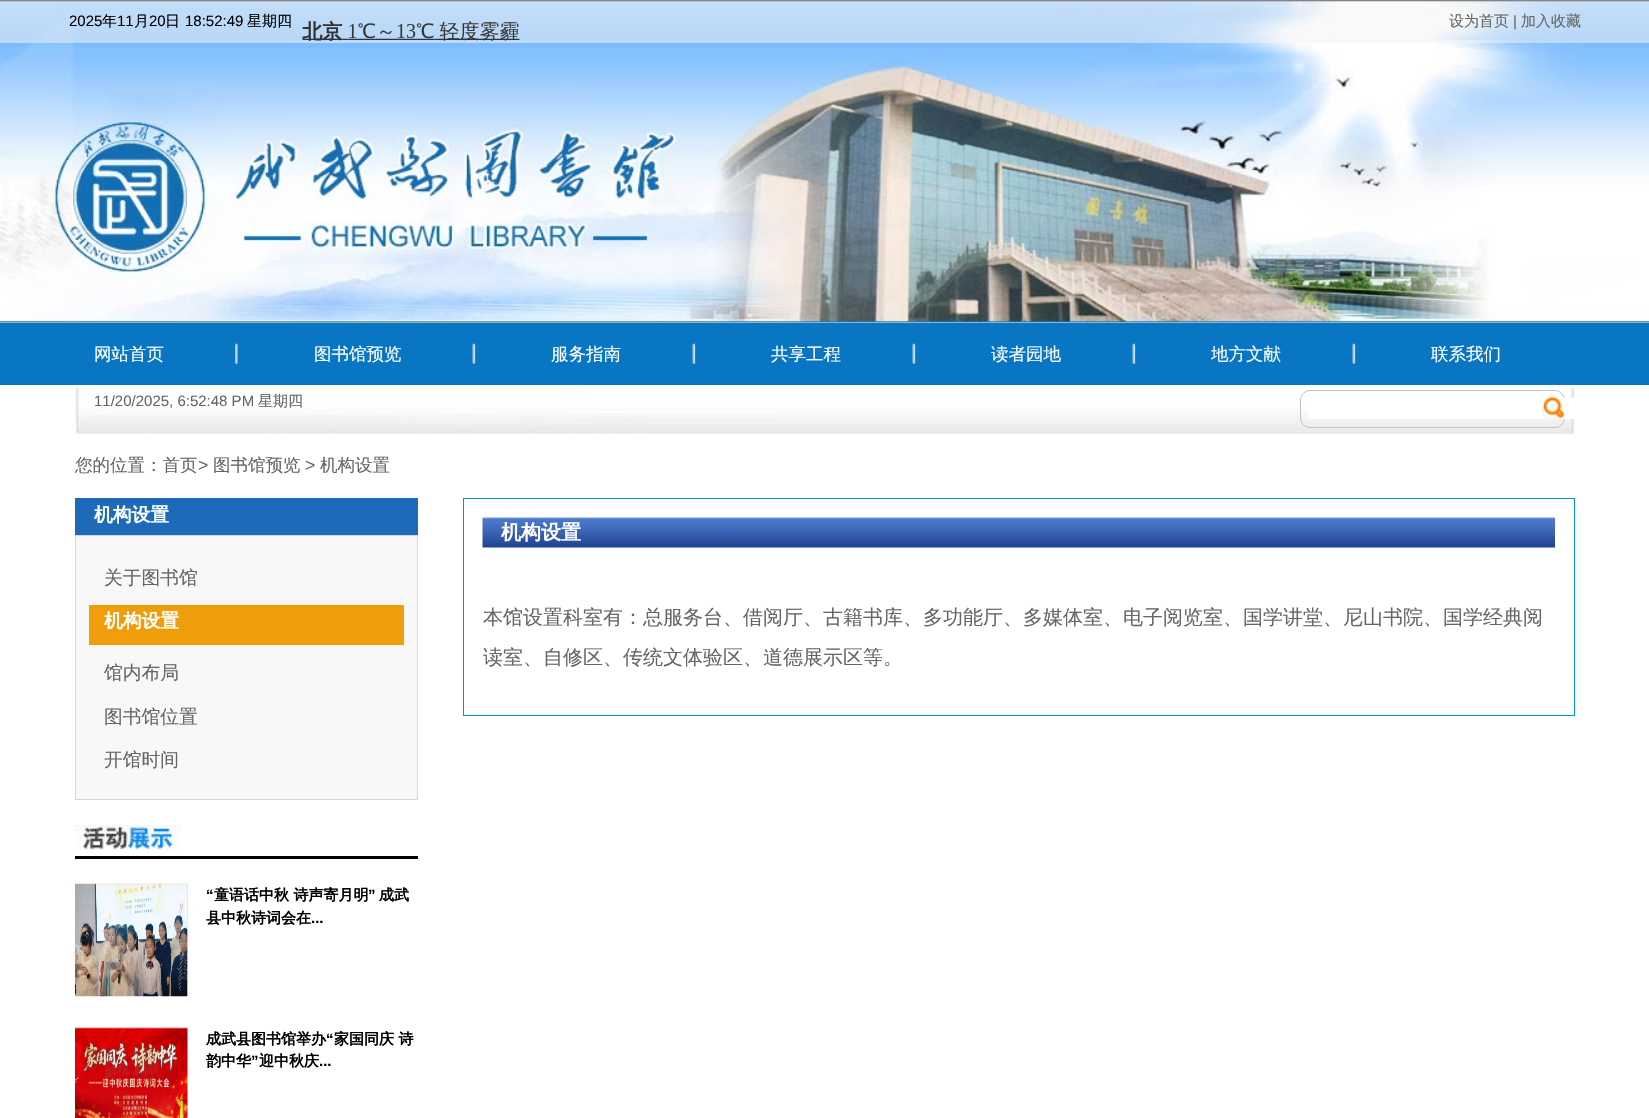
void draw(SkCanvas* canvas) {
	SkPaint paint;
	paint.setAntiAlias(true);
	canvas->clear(0xffffffff);
	canvas->drawImageRect(SkImages::DeferredFromEncodedData(SkData::MakeFromFileName("img1.png")), SkRect::MakeXYWH(0, 0, 1649, 323), SkSamplingOptions());
	paint.setColor(0x87f4f4f4);
	canvas->drawRect(SkRect::MakeXYWH(0, 0, 1649, 43), paint);
	SkFont f1(fontMgr->matchFamilyStyle("Liberation Sans", SkFontStyle::Normal()), 15);
	f1.setSubpixel(true);
	paint.setColor(0xff000000);
	canvas->drawString("2025", 69, 26, f1, paint);
	SkFont f2(fontMgr->matchFamilyStyle("WenQuanYi Zen Hei", SkFontStyle(500, SkFontStyle::kNormal_Width, SkFontStyle::kUpright_Slant)), 15);
	f2.setSubpixel(true);
	canvas->drawString("年", 102, 26, f2, paint);
	canvas->drawString("11", 117, 26, f1, paint);
	canvas->drawString("月", 134, 26, f2, paint);
	canvas->drawString("20", 149, 26, f1, paint);
	canvas->drawString("日", 165, 26, f2, paint);
	canvas->drawString("18:52:49", 185, 26, f1, paint);
	canvas->drawString("星期四", 247, 26, f2, paint);
	canvas->drawImageRect(SkImages::DeferredFromEncodedData(SkData::MakeFromFileName("img2.png")), SkRect::MakeXYWH(302, 20, 218, 21), SkSamplingOptions());
	paint.setColor(0xff666666);
	canvas->drawString("设为首页", 1449, 26, f2, paint);
	canvas->drawString("|", 1513, 26, f1, paint);
	canvas->drawString("加入收藏", 1521, 26, f2, paint);
	paint.setColor(0xff0876c3);
	canvas->drawRect(SkRect::MakeXYWH(0, 323, 1649, 62), paint);
	canvas->drawImageRect(SkImages::DeferredFromEncodedData(SkData::MakeFromFileName("img3.png")), SkRect::MakeXYWH(235, 343, 3, 21), SkSamplingOptions());
	SkFont f3(fontMgr->matchFamilyStyle("WenQuanYi Zen Hei", SkFontStyle(500, SkFontStyle::kNormal_Width, SkFontStyle::kUpright_Slant)), 17.5);
	f3.setSubpixel(true);
	paint.setColor(0xffffffff);
	canvas->drawString("网站首页", 94, 360, f3, paint);
	canvas->drawImageRect(SkImages::DeferredFromEncodedData(SkData::MakeFromFileName("img4.png")), SkRect::MakeXYWH(472, 343, 4, 21), SkSamplingOptions());
	canvas->drawString("图书馆预览", 314, 360, f3, paint);
	canvas->drawImageRect(SkImages::DeferredFromEncodedData(SkData::MakeFromFileName("img4.png")), SkRect::MakeXYWH(692, 343, 4, 21), SkSamplingOptions());
	canvas->drawString("服务指南", 551, 360, f3, paint);
	canvas->drawImageRect(SkImages::DeferredFromEncodedData(SkData::MakeFromFileName("img4.png")), SkRect::MakeXYWH(912, 343, 4, 21), SkSamplingOptions());
	canvas->drawString("共享工程", 771, 360, f3, paint);
	canvas->drawImageRect(SkImages::DeferredFromEncodedData(SkData::MakeFromFileName("img4.png")), SkRect::MakeXYWH(1132, 343, 4, 21), SkSamplingOptions());
	canvas->drawString("读者园地", 991, 360, f3, paint);
	canvas->drawImageRect(SkImages::DeferredFromEncodedData(SkData::MakeFromFileName("img4.png")), SkRect::MakeXYWH(1352, 343, 4, 21), SkSamplingOptions());
	canvas->drawString("地方文献", 1211, 360, f3, paint);
	canvas->drawString("联系我们", 1431, 360, f3, paint);
	canvas->drawImageRect(SkImages::DeferredFromEncodedData(SkData::MakeFromFileName("img5.png")), SkRect::MakeXYWH(75, 386, 1500, 48), SkSamplingOptions());
	paint.setColor(0xff666666);
	canvas->drawString("11/20/2025, 6:52:48 PM", 94, 406, f1, paint);
	canvas->drawString("星期四", 258, 406, f2, paint);
	paint.setStroke(true);
	paint.setStrokeWidth(1);
	paint.setColor(0xffc4bfc3);
	canvas->drawRoundRect(SkRect::MakeXYWH(1300.5, 390.5, 264, 37), 9.5, 9.5, paint);
	paint.setStroke(false);
	paint.setColor(0xffffffff);
	canvas->drawRect(SkRect::MakeXYWH(1308, 398, 267, 21), paint);
	canvas->drawImageRect(SkImages::DeferredFromEncodedData(SkData::MakeFromFileName("img6.png")), SkRect::MakeXYWH(1542, 397, 22, 22), SkSamplingOptions());
	paint.setColor(0xff666666);
	canvas->drawString("您的位置：首页", 75, 471, f3, paint);
	SkFont f4(fontMgr->matchFamilyStyle("Liberation Sans", SkFontStyle::Normal()), 17.5);
	f4.setSubpixel(true);
	canvas->drawString(">", 198, 471, f4, paint);
	canvas->drawString("图书馆预览", 213, 471, f3, paint);
	canvas->drawString(">", 305, 471, f4, paint);
	canvas->drawString("机构设置", 320, 471, f3, paint);
	paint.setColor(0xff1d6aba);
	canvas->drawRect(SkRect::MakeXYWH(75, 498, 343, 37), paint);
	SkFont f5(fontMgr->matchFamilyStyle("WenQuanYi Zen Hei", SkFontStyle::Bold()), 18.75);
	f5.setSubpixel(true);
	paint.setColor(0xffffffff);
	canvas->drawString("机构设置", 94, 521, f5, paint);
	paint.setColor(0xfff8f8f8);
	canvas->drawRect(SkRect::MakeXYWH(75.5, 535.5, 342, 264), paint);
	paint.setStroke(true);
	paint.setColor(0xffd7d7d7);
	canvas->drawRect(SkRect::MakeXYWH(75.5, 535.5, 342, 264), paint);
	SkFont f6(fontMgr->matchFamilyStyle("WenQuanYi Zen Hei", SkFontStyle(500, SkFontStyle::kNormal_Width, SkFontStyle::kUpright_Slant)), 18.75);
	f6.setSubpixel(true);
	paint.setStroke(false);
	paint.setColor(0xff666666);
	canvas->drawString("关于图书馆", 104, 584, f6, paint);
	paint.setColor(0xffef9d0b);
	canvas->drawRect(SkRect::MakeXYWH(89, 605, 315, 40), paint);
	paint.setColor(0xffffffff);
	canvas->drawString("机构设置", 104, 627, f5, paint);
	paint.setColor(0xff666666);
	canvas->drawString("馆内布局", 104, 679, f6, paint);
	canvas->drawString("图书馆位置", 104, 723, f6, paint);
	canvas->drawString("开馆时间", 104, 766, f6, paint);
	paint.setColor(0xff000000);
	canvas->drawRect(SkRect::MakeXYWH(75, 856, 343, 3), paint);
	canvas->drawImageRect(SkImages::DeferredFromEncodedData(SkData::MakeFromFileName("img7.png")), SkRect::MakeXYWH(75, 825, 106, 25), SkSamplingOptions());
	canvas->drawImageRect(SkImages::DeferredFromEncodedData(SkData::MakeFromFileName("img8.png")), SkRect::MakeXYWH(75, 883, 113, 114), SkSamplingOptions());
	SkFont f7(fontMgr->matchFamilyStyle("Liberation Sans", SkFontStyle::Bold()), 15);
	f7.setSubpixel(true);
	canvas->drawString("“", 206, 900, f7, paint);
	SkFont f8(fontMgr->matchFamilyStyle("WenQuanYi Zen Hei", SkFontStyle::Bold()), 15);
	f8.setSubpixel(true);
	canvas->drawString("童语话中秋 诗声寄月明", 214, 900, f8, paint);
	canvas->drawString("”", 368, 900, f7, paint);
	canvas->drawString("成武", 379, 900, f8, paint);
	canvas->drawString("县中秋诗词会在", 206, 923, f8, paint);
	canvas->drawString("...", 311, 923, f7, paint);
	canvas->drawImageRect(SkImages::DeferredFromEncodedData(SkData::MakeFromFileName("img9.png")), SkRect::MakeXYWH(75, 1027, 113, 91), SkSamplingOptions());
	canvas->drawString("成武县图书馆举办", 206, 1044, f8, paint);
	canvas->drawString("“", 326, 1044, f7, paint);
	canvas->drawString("家国同庆 诗", 334, 1044, f8, paint);
	canvas->drawString("韵中华", 206, 1066, f8, paint);
	canvas->drawString("”", 251, 1066, f7, paint);
	canvas->drawString("迎中秋庆", 259, 1066, f8, paint);
	canvas->drawString("...", 319, 1066, f7, paint);
	paint.setStroke(true);
	paint.setColor(0xff038fe7);
	canvas->drawRect(SkRect::MakeXYWH(463.5, 498.5, 1111, 217), paint);
	canvas->drawImageRect(SkImages::DeferredFromEncodedData(SkData::MakeFromFileName("img10.png")), SkRect::MakeXYWH(482, 517, 1073, 31), SkSamplingOptions());
	SkFont f9(fontMgr->matchFamilyStyle("WenQuanYi Zen Hei", SkFontStyle::Bold()), 20);
	f9.setSubpixel(true);
	paint.setStroke(false);
	paint.setColor(0xffffffff);
	canvas->drawString("机构设置", 501, 539, f9, paint);
	SkFont f10(fontMgr->matchFamilyStyle("WenQuanYi Zen Hei", SkFontStyle(500, SkFontStyle::kNormal_Width, SkFontStyle::kUpright_Slant)), 20);
	f10.setSubpixel(true);
	paint.setColor(0xff666666);
	canvas->drawString("本馆设置科室有：总服务台、借阅厅、古籍书库、多功能厅、多媒体室、电子阅览室、国学讲堂、尼山书院、国学经典阅", 483, 624, f10, paint);
	canvas->drawString("读室、自修区、传统文体验区、道德展示区等。", 483, 664, f10, paint);
}
